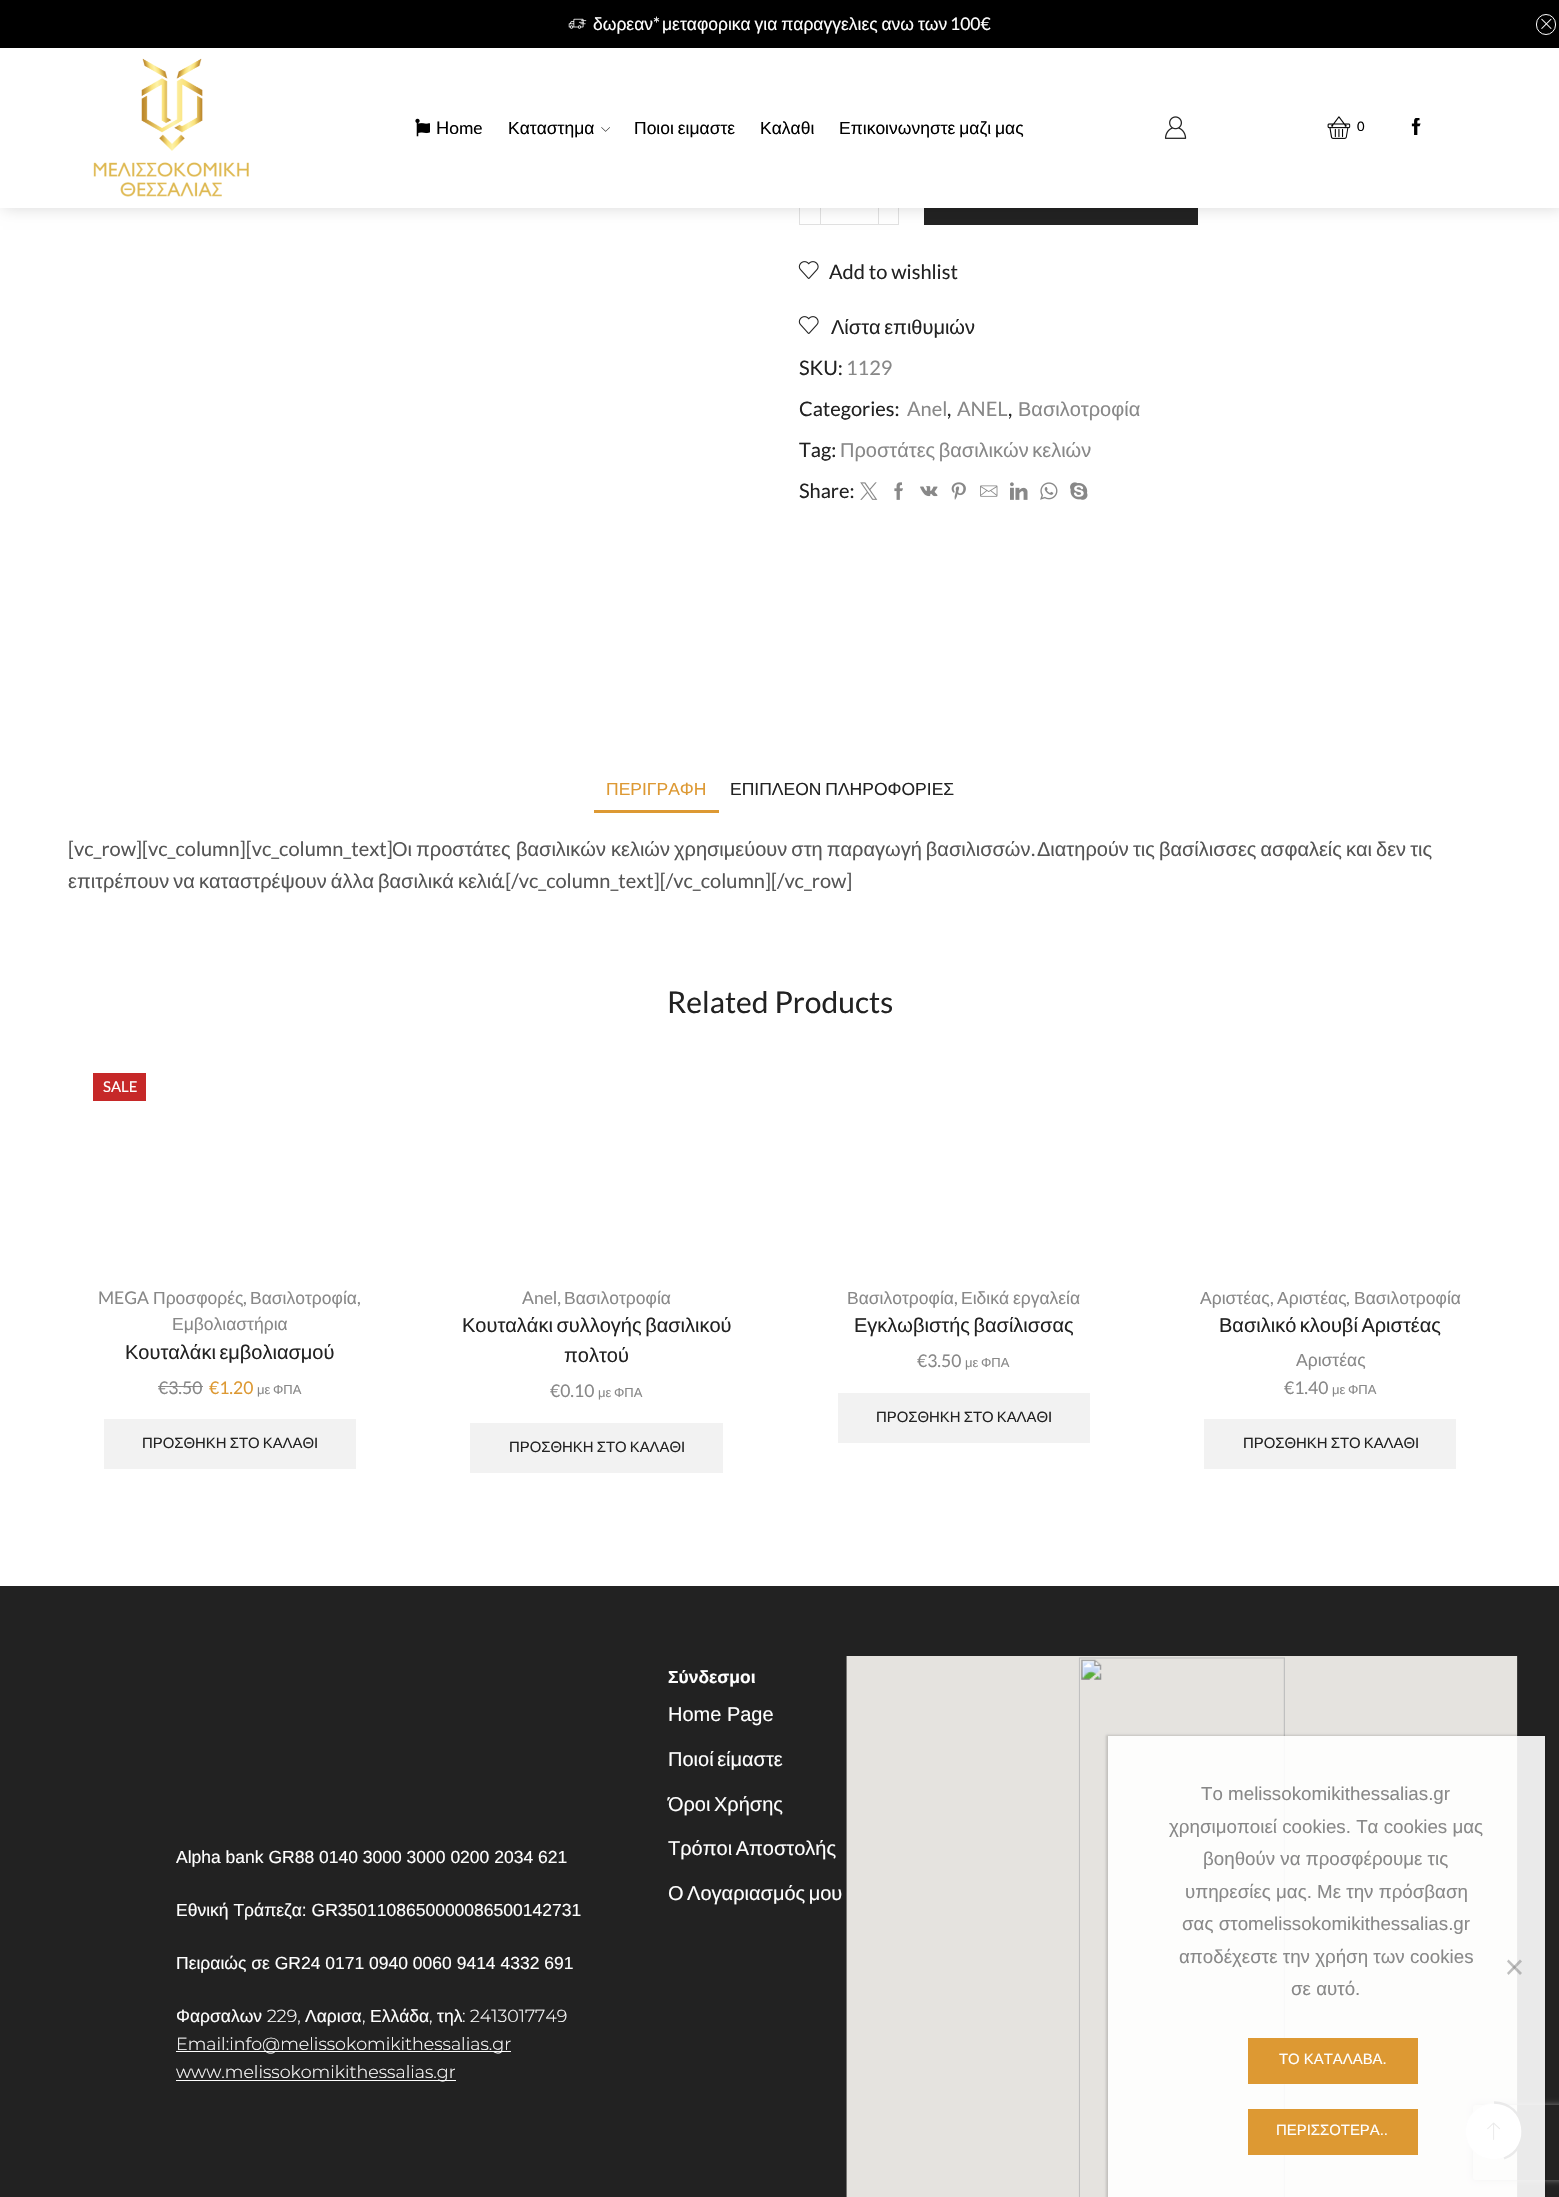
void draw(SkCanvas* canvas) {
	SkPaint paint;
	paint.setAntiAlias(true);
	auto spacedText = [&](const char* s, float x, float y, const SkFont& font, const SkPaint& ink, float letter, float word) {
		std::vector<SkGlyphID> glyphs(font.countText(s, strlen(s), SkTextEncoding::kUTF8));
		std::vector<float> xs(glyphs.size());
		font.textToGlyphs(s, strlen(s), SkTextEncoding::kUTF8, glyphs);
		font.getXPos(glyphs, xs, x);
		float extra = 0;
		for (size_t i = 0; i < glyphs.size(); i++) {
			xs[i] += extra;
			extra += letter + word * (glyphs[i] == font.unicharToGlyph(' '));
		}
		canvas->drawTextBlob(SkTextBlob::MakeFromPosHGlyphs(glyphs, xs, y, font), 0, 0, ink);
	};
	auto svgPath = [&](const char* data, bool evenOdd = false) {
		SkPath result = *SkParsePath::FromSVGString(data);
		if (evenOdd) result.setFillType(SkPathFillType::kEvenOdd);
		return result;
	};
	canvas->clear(0xffffffff);
	paint.setStroke(true);
	paint.setStrokeWidth(1);
	paint.setColor(0xffe1e1e1);
	canvas->drawRect(SkRect::MakeXYWH(799.5, 178.5, 21, 46), paint);
	paint.setStroke(false);
	canvas->drawRect(SkRect::MakeXYWH(821, 224, 57, 1), paint);
	paint.setStroke(true);
	canvas->drawRect(SkRect::MakeXYWH(878.5, 178.5, 20, 46), paint);
	paint.setStroke(false);
	paint.setColor(0xff222222);
	canvas->drawRect(SkRect::MakeXYWH(924, 208, 274, 17), paint);
	paint.setColor(0x26000000);
	paint.setMaskFilter(SkMaskFilter::MakeBlur(kNormal_SkBlurStyle, 7.5));
	canvas->drawRect(SkRect::MakeXYWH(3, 48, 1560, 160), paint);
	paint.setMaskFilter(nullptr);
	paint.setColor(0xff000000);
	canvas->drawRect(SkRect::MakeXYWH(0, 0, 1559, 48), paint);
	canvas->drawImageRect(SkImages::DeferredFromEncodedData(SkData::MakeFromFileName("img1.png")), SkRect::MakeXYWH(568, 18, 19, 11), SkSamplingOptions());
	SkFont f1(fontMgr->matchFamilyStyle("Liberation Sans", SkFontStyle::Normal()), 17.5);
	f1.setSubpixel(true);
	paint.setColor(0xffffffff);
	canvas->drawString("δωρεαν", 593, 30, f1, paint);
	SkFont f2(fontMgr->matchFamilyStyle("Lato", SkFontStyle::Normal()), 17.5);
	f2.setSubpixel(true);
	canvas->drawString("*", 653, 30, f2, paint);
	spacedText("μεταφορικα για παραγγελιες ανω των", 662, 30, f1, paint, 0, -1);
	canvas->drawString("100€", 950, 30, f2, paint);
	paint.setStroke(true);
	canvas->drawRoundRect(SkRect::MakeXYWH(1536.5, 14.5, 19, 20), 9.5, 9.5, paint);
	canvas->drawImageRect(SkImages::DeferredFromEncodedData(SkData::MakeFromFileName("img2.png")), SkRect::MakeXYWH(1541, 18, 11, 11), SkSamplingOptions());
	paint.setStroke(false);
	canvas->drawRect(SkRect::MakeXYWH(0, 48, 1559, 160), paint);
	canvas->drawImageRect(SkImages::DeferredFromEncodedData(SkData::MakeFromFileName("img3.png")), SkRect::MakeXYWH(93, 58, 156, 139), SkSamplingOptions());
	canvas->drawImageRect(SkImages::DeferredFromEncodedData(SkData::MakeFromFileName("img4.png")), SkRect::MakeXYWH(415, 118, 15, 19), SkSamplingOptions());
	paint.setColor(0xff000000);
	canvas->drawString("Home", 436, 134, f2, paint);
	canvas->drawString("Καταστημα", 508, 134, f1, paint);
	canvas->drawImageRect(SkImages::DeferredFromEncodedData(SkData::MakeFromFileName("img5.png")), SkRect::MakeXYWH(601, 127, 9, 5), SkSamplingOptions());
	spacedText("Ποιοι ειμαστε", 634, 134, f1, paint, 0, -1);
	canvas->drawString("Καλαθι", 760, 134, f1, paint);
	spacedText("Επικοινωνηστε μαζι μας", 839, 134, f1, paint, 0, -1);
	canvas->drawImageRect(SkImages::DeferredFromEncodedData(SkData::MakeFromFileName("img6.png")), SkRect::MakeXYWH(1164, 116, 23, 23), SkSamplingOptions());
	canvas->drawImageRect(SkImages::DeferredFromEncodedData(SkData::MakeFromFileName("img7.png")), SkRect::MakeXYWH(1327, 116, 24, 23), SkSamplingOptions());
	SkFont f3(fontMgr->matchFamilyStyle("Lato", SkFontStyle::Normal()), 13);
	f3.setSubpixel(true);
	canvas->drawString("0", 1357, 131, f3, paint);
	canvas->drawImageRect(SkImages::DeferredFromEncodedData(SkData::MakeFromFileName("img8.png")), SkRect::MakeXYWH(1411, 118, 10, 17), SkSamplingOptions());
	canvas->drawImageRect(SkImages::DeferredFromEncodedData(SkData::MakeFromFileName("img9.png")), SkRect::MakeXYWH(798, 261, 21, 18), SkSamplingOptions());
	SkFont f4(fontMgr->matchFamilyStyle("Lato", SkFontStyle::Normal()), 20);
	f4.setSubpixel(true);
	paint.setColor(0xff222222);
	canvas->drawString("Add to wishlist", 829, 279, f4, paint);
	canvas->drawImageRect(SkImages::DeferredFromEncodedData(SkData::MakeFromFileName("img9.png")), SkRect::MakeXYWH(798, 316, 21, 18), SkSamplingOptions());
	SkFont f5(fontMgr->matchFamilyStyle("Liberation Sans", SkFontStyle::Normal()), 20);
	f5.setSubpixel(true);
	spacedText("Λίστα επιθυμιών", 831, 334, f5, paint, 0, -2);
	canvas->drawString("SKU:", 799, 375, f4, paint);
	paint.setColor(0xff888888);
	canvas->drawString("1129", 846, 375, f4, paint);
	paint.setColor(0xff222222);
	canvas->drawString("Categories:", 799, 416, f4, paint);
	paint.setColor(0xff888888);
	canvas->drawString("Anel", 907, 416, f4, paint);
	paint.setColor(0xff222222);
	canvas->drawString(",", 947, 416, f4, paint);
	paint.setColor(0xff888888);
	canvas->drawString("ANEL", 957, 416, f4, paint);
	paint.setColor(0xff222222);
	canvas->drawString(",", 1008, 416, f4, paint);
	paint.setColor(0xff888888);
	canvas->drawString("Βασιλοτροφία", 1018, 416, f5, paint);
	paint.setColor(0xff222222);
	canvas->drawString("Tag:", 799, 457, f4, paint);
	paint.setColor(0xff888888);
	spacedText("Προστάτες βασιλικών κελιών", 840, 457, f5, paint, 0, -2);
	paint.setColor(0xff222222);
	canvas->drawString("Share:", 799, 498, f4, paint);
	canvas->drawImageRect(SkImages::DeferredFromEncodedData(SkData::MakeFromFileName("img10.png")), SkRect::MakeXYWH(860, 482, 18, 18), SkSamplingOptions());
	canvas->drawImageRect(SkImages::DeferredFromEncodedData(SkData::MakeFromFileName("img11.png")), SkRect::MakeXYWH(894, 482, 9, 18), SkSamplingOptions());
	canvas->drawImageRect(SkImages::DeferredFromEncodedData(SkData::MakeFromFileName("img12.png")), SkRect::MakeXYWH(920, 486, 18, 11), SkSamplingOptions());
	canvas->drawImageRect(SkImages::DeferredFromEncodedData(SkData::MakeFromFileName("img13.png")), SkRect::MakeXYWH(951, 482, 15, 18), SkSamplingOptions());
	canvas->drawImageRect(SkImages::DeferredFromEncodedData(SkData::MakeFromFileName("img14.png")), SkRect::MakeXYWH(980, 485, 18, 12), SkSamplingOptions());
	canvas->drawImageRect(SkImages::DeferredFromEncodedData(SkData::MakeFromFileName("img15.png")), SkRect::MakeXYWH(1010, 482, 18, 18), SkSamplingOptions());
	canvas->drawImageRect(SkImages::DeferredFromEncodedData(SkData::MakeFromFileName("img16.png")), SkRect::MakeXYWH(1040, 482, 18, 18), SkSamplingOptions());
	canvas->drawImageRect(SkImages::DeferredFromEncodedData(SkData::MakeFromFileName("img17.png")), SkRect::MakeXYWH(1070, 482, 18, 18), SkSamplingOptions());
	paint.setColor(0xffdd9933);
	canvas->drawString("ΠΕΡΙΓΡΑΦΗ", 606, 795, f1, paint);
	canvas->drawRect(SkRect::MakeXYWH(594, 810, 125, 3), paint);
	paint.setColor(0xff222222);
	spacedText("ΕΠΙΠΛΕΟΝ ΠΛΗΡΟΦΟΡΙΕΣ", 730, 795, f1, paint, 0, -1);
	paint.setColor(0xff555555);
	canvas->drawString("[vc_row][vc_column][vc_column_text]", 68, 856, f4, paint);
	spacedText("Οι προστάτες", 392, 856, f5, paint, 0, -1.5);
	canvas->drawString("βασιλικών", 516, 856, f5, paint);
	spacedText("κελιών χρησιμεύουν στη παραγωγή βασιλισσών", 611, 856, f5, paint, 0, -1.5);
	canvas->drawString(".", 1031, 856, f4, paint);
	spacedText("Διατηρούν τις βασίλισσες ασφαλείς και δεν τις", 1037, 856, f5, paint, 0, -1.5);
	spacedText("επιτρέπουν να καταστρέψουν άλλα βασιλικά κελιά", 68, 888, f5, paint, 0, -1.5);
	canvas->drawString(".[/vc_column_text][/vc_column][/vc_row]", 501, 888, f4, paint);
	SkFont f6(fontMgr->matchFamilyStyle("Lato", SkFontStyle::Normal()), 30);
	f6.setSubpixel(true);
	paint.setColor(0xff222222);
	canvas->drawString("Related Products", 667, 1013, f6, paint);
	paint.setColor(0xffc62828);
	canvas->drawRect(SkRect::MakeXYWH(93, 1073, 53, 28), paint);
	SkFont f7(fontMgr->matchFamilyStyle("Lato", SkFontStyle::Normal()), 14.9);
	f7.setSubpixel(true);
	paint.setColor(0xffffffff);
	canvas->drawString("SALE", 103, 1092, f7, paint);
	paint.setColor(0xff888888);
	canvas->drawString("MEGA", 98, 1304, f2, paint);
	canvas->drawString("Προσφορές", 153, 1304, f1, paint);
	canvas->drawString(",", 243, 1304, f2, paint);
	canvas->drawString("Βασιλοτροφία", 250, 1304, f1, paint);
	canvas->drawString(",", 357, 1304, f2, paint);
	canvas->drawString("Εμβολιαστήρια", 172, 1330, f1, paint);
	paint.setColor(0xff222222);
	spacedText("Κουταλάκι εμβολιασμού", 125, 1359, f5, paint, 0, -2);
	paint.setColor(0xff888888);
	canvas->drawString("€3.50", 158, 1394, f2, paint);
	canvas->drawRect(SkRect::MakeXYWH(158, 1386, 45, 1), paint);
	paint.setColor(0xffdd9933);
	canvas->drawString("€1.20", 209, 1394, f2, paint);
	SkFont f8(fontMgr->matchFamilyStyle("Liberation Sans", SkFontStyle::Normal()), 13);
	f8.setSubpixel(true);
	paint.setColor(0xff888888);
	spacedText("με ΦΠΑ", 257, 1394, f8, paint, 0, -1);
	paint.setColor(0xfff2f2f2);
	canvas->drawRect(SkRect::MakeXYWH(104, 1419, 252, 50), paint);
	SkFont f9(fontMgr->matchFamilyStyle("Liberation Sans", SkFontStyle::Normal()), 14.9);
	f9.setSubpixel(true);
	paint.setColor(0xff222222);
	spacedText("ΠΡΟΣΘΗΚΗ ΣΤΟ ΚΑΛΑΘΙ", 142, 1448, f9, paint, 0, -1);
	paint.setColor(0xff888888);
	canvas->drawString("Anel,", 522, 1304, f2, paint);
	canvas->drawString("Βασιλοτροφία", 564, 1304, f1, paint);
	paint.setColor(0xff222222);
	spacedText("Κουταλάκι συλλογής βασιλικού", 462, 1332, f5, paint, 0, -2);
	canvas->drawString("πολτού", 564, 1362, f5, paint);
	paint.setColor(0xff888888);
	canvas->drawString("€0.10", 550, 1397, f2, paint);
	spacedText("με ΦΠΑ", 598, 1397, f8, paint, 0, -1);
	paint.setColor(0xfff2f2f2);
	canvas->drawRect(SkRect::MakeXYWH(470, 1423, 253, 50), paint);
	paint.setColor(0xff222222);
	spacedText("ΠΡΟΣΘΗΚΗ ΣΤΟ ΚΑΛΑΘΙ", 509, 1452, f9, paint, 0, -1);
	paint.setColor(0xff888888);
	canvas->drawString("Βασιλοτροφία", 847, 1304, f1, paint);
	canvas->drawString(",", 954, 1304, f2, paint);
	spacedText("Ειδικά εργαλεία", 961, 1304, f1, paint, 0, -1);
	paint.setColor(0xff222222);
	spacedText("Εγκλωβιστής βασίλισσας", 854, 1332, f5, paint, 0, -2);
	paint.setColor(0xff888888);
	canvas->drawString("€3.50", 917, 1367, f2, paint);
	spacedText("με ΦΠΑ", 965, 1367, f8, paint, 0, -1);
	paint.setColor(0xfff2f2f2);
	canvas->drawRect(SkRect::MakeXYWH(838, 1393, 252, 50), paint);
	paint.setColor(0xff222222);
	spacedText("ΠΡΟΣΘΗΚΗ ΣΤΟ ΚΑΛΑΘΙ", 876, 1422, f9, paint, 0, -1);
	paint.setColor(0xff888888);
	canvas->drawString("Αριστέας", 1200, 1304, f1, paint);
	canvas->drawString(",", 1270, 1304, f2, paint);
	canvas->drawString("Αριστέας", 1277, 1304, f1, paint);
	canvas->drawString(",", 1346, 1304, f2, paint);
	canvas->drawString("Βασιλοτροφία", 1354, 1304, f1, paint);
	paint.setColor(0xff222222);
	spacedText("Βασιλικό κλουβί Αριστέας", 1219, 1332, f5, paint, 0, -2);
	paint.setColor(0xff888888);
	canvas->drawString("Αριστέας", 1296, 1366, f1, paint);
	canvas->drawString("€1.40", 1284, 1394, f2, paint);
	spacedText("με ΦΠΑ", 1332, 1394, f8, paint, 0, -1);
	paint.setColor(0xfff2f2f2);
	canvas->drawRect(SkRect::MakeXYWH(1204, 1419, 252, 50), paint);
	paint.setColor(0xff222222);
	spacedText("ΠΡΟΣΘΗΚΗ ΣΤΟ ΚΑΛΑΘΙ", 1243, 1448, f9, paint, 0, -1);
	canvas->drawRect(SkRect::MakeXYWH(0, 1586, 1559, 611), paint);
	SkFont f10(fontMgr->matchFamilyStyle("Liberation Sans", SkFontStyle::Bold()), 17.5);
	f10.setSubpixel(true);
	paint.setColor(0xffffffff);
	canvas->drawString("Σύνδεσμοι", 668, 1683, f10, paint);
	canvas->drawString("Home Page", 668, 1721, f5, paint);
	spacedText("Ποιοί είμαστε", 668, 1766, f5, paint, 0, -2);
	spacedText("Όροι Χρήσης", 668, 1811, f5, paint, 0, -2);
	spacedText("Τρόποι Αποστολής", 668, 1855, f5, paint, 0, -2);
	spacedText("Ο Λογαριασμός μου", 668, 1900, f5, paint, 0, -2);
	canvas->drawImageRect(SkImages::DeferredFromEncodedData(SkData::MakeFromFileName("img18.png")), SkRect::MakeXYWH(846, 1656, 672, 541), SkSamplingOptions());
	canvas->drawString("Alpha bank GR88 0140 3000 3000 0200 2034 621", 176, 1863, f1, paint);
	canvas->drawString("Εθνική Τράπεζα: GR3501108650000086500142731", 176, 1916, f1, paint);
	canvas->drawString("Πειραιώς σε GR24 0171 0940 0060 9414 4332 691", 176, 1969, f1, paint);
	canvas->drawString("Φαρσαλων", 176, 2022, f1, paint);
	SkFont f11(fontMgr->matchFamilyStyle("Montserrat", SkFontStyle(300, SkFontStyle::kNormal_Width, SkFontStyle::kUpright_Slant)), 17.5);
	f11.setSubpixel(true);
	canvas->drawString("229,", 267, 2022, f11, paint);
	canvas->drawString("Λαρισα", 305, 2022, f1, paint);
	canvas->drawString(",", 362, 2022, f11, paint);
	canvas->drawString("Ελλάδα", 370, 2022, f1, paint);
	canvas->drawString(",", 429, 2022, f11, paint);
	canvas->drawString("τηλ", 437, 2022, f1, paint);
	canvas->drawString(": 2413017749", 462, 2022, f11, paint);
	canvas->drawRect(SkRect::MakeXYWH(176, 2051, 335, 1), paint);
	canvas->drawString("Email:info@melissokomikithessalias.gr", 176, 2050, f11, paint);
	canvas->drawRect(SkRect::MakeXYWH(176, 2080, 280, 1), paint);
	canvas->drawString("www.melissokomikithessalias.gr", 176, 2078, f11, paint);
	canvas->save();
	canvas->clipPath(svgPath("M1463 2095H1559V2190H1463ZM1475.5 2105H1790.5C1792 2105 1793 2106 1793 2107.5V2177.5C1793 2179 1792 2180 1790.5 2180H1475.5C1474 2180 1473 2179 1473 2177.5V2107.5C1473 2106 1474 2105 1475.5 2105Z", true), true);
	paint.setColor(0xff808080);
	paint.setMaskFilter(SkMaskFilter::MakeBlur(kNormal_SkBlurStyle, 3));
	canvas->drawRoundRect(SkRect::MakeXYWH(1473, 2105, 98, 75), 2.5, 2.5, paint);
	paint.setMaskFilter(nullptr);
	canvas->restore();
	paint.setColor(0xffffffff);
	canvas->drawRoundRect(SkRect::MakeXYWH(1465.5, 2103.5, 57, 56), 28, 28, paint);
	paint.setStroke(true);
	paint.setColor(0xffe1e1e1);
	canvas->drawRoundRect(SkRect::MakeXYWH(1465.5, 2103.5, 57, 56), 28, 28, paint);
	paint.setStrokeWidth(2.4);
	paint.setColor(0xff222222);
	canvas->drawPath(svgPath("M1494 2102.5C1526 2102.5 1533.5 2147.5 1504 2158.5"), paint);
	canvas->drawImageRect(SkImages::DeferredFromEncodedData(SkData::MakeFromFileName("img19.png")), SkRect::MakeXYWH(1487, 2122, 13, 18), SkSamplingOptions());
	canvas->save();
	canvas->clipPath(svgPath("M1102 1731H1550V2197H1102ZM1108 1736H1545V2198H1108Z", true), true);
	paint.setStroke(false);
	paint.setColor(0x26000000);
	paint.setMaskFilter(SkMaskFilter::MakeBlur(kNormal_SkBlurStyle, 1));
	canvas->drawRect(SkRect::MakeXYWH(1106, 1735, 440, 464), paint);
	paint.setMaskFilter(nullptr);
	canvas->restore();
	paint.setColor(0xe6ffffff);
	canvas->drawRect(SkRect::MakeXYWH(1108, 1736, 437, 461), paint);
	SkFont f12(fontMgr->matchFamilyStyle("Liberation Sans", SkFontStyle::Normal()), 18.75);
	f12.setSubpixel(true);
	paint.setColor(0xff888888);
	canvas->drawString("To melissokomikithessalias.gr", 1201, 1800, f12, paint);
	canvas->drawString("χρησιμοποιεί cookies. Τα cookies μας", 1169, 1833, f12, paint);
	canvas->drawString("βοηθούν να προσφέρουμε τις", 1203, 1865, f12, paint);
	canvas->drawString("υπηρεσίες μας. Με την πρόσβαση", 1185, 1898, f12, paint);
	canvas->drawString("σας στοmelissokomikithessalias.gr", 1182, 1930, f12, paint);
	canvas->drawString("αποδέχεστε την χρήση των cookies", 1179, 1963, f12, paint);
	canvas->drawString("σε αυτό.", 1291, 1995, f12, paint);
	paint.setColor(0x80808080);
	canvas->drawPath(svgPath("M1520 1959.5L1522 1961.5L1508.5 1975L1507 1973Z"), paint);
	canvas->drawPath(svgPath("M1507 1961.5L1508.5 1959.5L1522 1973L1520 1975Z"), paint);
	paint.setColor(0xffdd9933);
	canvas->drawRect(SkRect::MakeXYWH(1248, 2038, 170, 46), paint);
	paint.setColor(0xffffffff);
	canvas->drawString("ΤΟ ΚΑΤΑΛΑΒΑ.", 1279, 2064, f9, paint);
	paint.setColor(0xffdd9933);
	canvas->drawRect(SkRect::MakeXYWH(1248, 2109, 170, 46), paint);
	paint.setColor(0xffffffff);
	canvas->drawString("ΠΕΡΙΣΣΟΤΕΡΑ..", 1276, 2135, f9, paint);
}
